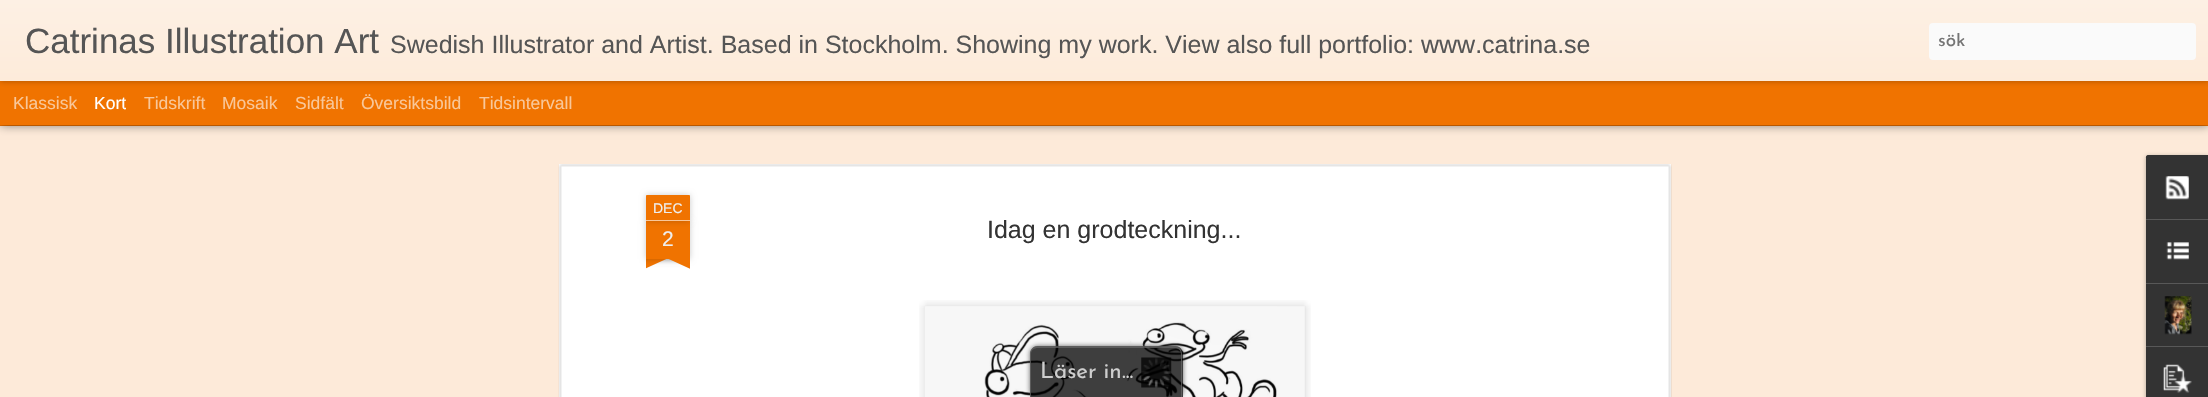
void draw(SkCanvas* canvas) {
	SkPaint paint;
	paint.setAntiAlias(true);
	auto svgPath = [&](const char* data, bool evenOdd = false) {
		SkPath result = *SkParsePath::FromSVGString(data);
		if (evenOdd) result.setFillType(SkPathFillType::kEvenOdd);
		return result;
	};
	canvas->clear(0xfff07300);
	paint.setColor(0xfffdead9);
	canvas->drawRect(SkRect::MakeXYWH(0, 126, 2208, 271), paint);
	paint.setColor(0x80000000);
	paint.setMaskFilter(SkMaskFilter::MakeBlur(kNormal_SkBlurStyle, 5));
	canvas->drawRect(SkRect::MakeXYWH(0, 81, 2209, 44), paint);
	paint.setMaskFilter(nullptr);
	paint.setColor(0xfff07300);
	canvas->drawRect(SkRect::MakeXYWH(0, 81, 2208, 44), paint);
	paint.setColor(0x4d000000);
	paint.setMaskFilter(SkMaskFilter::MakeBlur(kNormal_SkBlurStyle, 3));
	canvas->drawRect(SkRect::MakeXYWH(0, 0, 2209, 81), paint);
	paint.setMaskFilter(nullptr);
	{
		const SkColor colors[] = {0xfffdf0e4, 0xfffdebda};
		const float stops[] = {0, 1};
		const SkPoint ends[] = {{0, 0}, {0, 81}};
		paint.setShader(SkGradientShader::MakeLinear(ends, colors, stops, 2, SkTileMode::kClamp));
		paint.setAlpha(255);
	}
	canvas->drawRect(SkRect::MakeXYWH(0, 0, 2208, 81), paint);
	SkFont f1(fontMgr->matchFamilyStyle("Liberation Sans", SkFontStyle::Normal()), 35);
	f1.setSubpixel(true);
	paint.setShader(nullptr);
	paint.setColor(0xff555555);
	canvas->drawString("Catrinas Illustration Art", 25, 53, f1, paint);
	SkFont f2(fontMgr->matchFamilyStyle("Liberation Sans", SkFontStyle::Normal()), 25);
	f2.setSubpixel(true);
	canvas->drawString("Swedish Illustrator and Artist. Based in Stockholm. Showing my work. View also full portfolio: www.catrina.se", 390, 53, f2, paint);
	paint.setColor(0xfffafafa);
	canvas->drawRoundRect(SkRect::MakeXYWH(1929, 23, 267, 37), 4, 4, paint);
	canvas->save();
	canvas->clipRect(SkRect::MakeXYWH(1938, 33, 250, 18));
	SkFont f3(fontMgr->matchFamilyStyle("Josefin Sans", SkFontStyle(100, SkFontStyle::kNormal_Width, SkFontStyle::kUpright_Slant)), 19);
	f3.setSubpixel(true);
	paint.setColor(0xff757575);
	canvas->drawString("sök", 1938, 46, f3, paint);
	canvas->restore();
	SkFont f4(fontMgr->matchFamilyStyle("Liberation Sans", SkFontStyle::Normal()), 17.5);
	f4.setSubpixel(true);
	paint.setColor(0xfff9c799);
	canvas->drawString("Klassisk", 13, 109, f4, paint);
	paint.setColor(0xffffffff);
	canvas->drawString("Kort", 94, 109, f4, paint);
	paint.setColor(0xfff9c799);
	canvas->drawString("Tidskrift", 144, 109, f4, paint);
	canvas->drawString("Mosaik", 222, 109, f4, paint);
	canvas->drawString("Sidfält", 295, 109, f4, paint);
	canvas->drawString("Översiktsbild", 361, 109, f4, paint);
	canvas->drawString("Tidsintervall", 479, 109, f4, paint);
	paint.setColor(0xffffffff);
	canvas->drawRect(SkRect::MakeXYWH(559, 164, 1112, 233), paint);
	canvas->drawImageRect(SkImages::DeferredFromEncodedData(SkData::MakeFromFileName("img1.png")), SkRect::MakeXYWH(558, 164, 1114, 233), SkSamplingOptions());
	paint.setColor(0x33000000);
	paint.setMaskFilter(SkMaskFilter::MakeBlur(kNormal_SkBlurStyle, 3));
	canvas->drawRect(SkRect::MakeXYWH(646, 221, 44, 38), paint);
	paint.setMaskFilter(nullptr);
	paint.setColor(0xfff07300);
	canvas->drawRect(SkRect::MakeXYWH(646, 221, 44, 38), paint);
	paint.setColor(0x33000000);
	paint.setMaskFilter(SkMaskFilter::MakeBlur(kNormal_SkBlurStyle, 3));
	canvas->drawRoundRect(SkRect::MakeXYWH(646, 195, 44, 26), 1, 1, paint);
	paint.setMaskFilter(nullptr);
	paint.setColor(0xfff07300);
	canvas->drawPath(svgPath("M647 195H689C689.5 195 690 195.5 690 196V221H646V196C646 195.5 646.5 195 647 195Z"), paint);
	paint.setColor(0xfff9c799);
	canvas->drawRect(SkRect::MakeXYWH(646, 220, 44, 1), paint);
	SkFont f5(fontMgr->matchFamilyStyle("Liberation Sans", SkFontStyle::Normal()), 14);
	f5.setSubpixel(true);
	paint.setColor(0xffeeeeee);
	canvas->drawString("DEC", 653, 213, f5, paint);
	SkFont f6(fontMgr->matchFamilyStyle("Liberation Sans", SkFontStyle::Normal()), 21);
	f6.setSubpixel(true);
	canvas->drawString("2", 662, 246, f6, paint);
	canvas->save();
	canvas->clipRect(SkRect::MakeXYWH(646, 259, 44, 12));
	paint.setColor(0x33000000);
	paint.setMaskFilter(SkMaskFilter::MakeBlur(kNormal_SkBlurStyle, 3));
	canvas->drawRect(SkRect::MakeXYWH(635, 246, 63, 13), paint);
	paint.setMaskFilter(nullptr);
	canvas->restore();
	canvas->save();
	canvas->clipRect(SkRect::MakeXYWH(646, 259, 44, 12));
	paint.setColor(0xfff07300);
	canvas->drawPath(svgPath("M635 260L691 234L697 245L640 271Z"), paint);
	canvas->restore();
	canvas->save();
	canvas->clipRect(SkRect::MakeXYWH(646, 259, 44, 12));
	paint.setColor(0x33000000);
	paint.setMaskFilter(SkMaskFilter::MakeBlur(kNormal_SkBlurStyle, 3));
	canvas->drawRect(SkRect::MakeXYWH(639, 246, 62, 13), paint);
	paint.setMaskFilter(nullptr);
	canvas->restore();
	canvas->save();
	canvas->clipRect(SkRect::MakeXYWH(646, 259, 44, 12));
	paint.setColor(0xfff07300);
	canvas->drawPath(svgPath("M644 234L700 260L695 271L638 245Z"), paint);
	canvas->restore();
	paint.setColor(0xff333333);
	canvas->drawString("Idag en grodteckning...", 987, 238, f2, paint);
	canvas->drawImageRect(SkImages::DeferredFromEncodedData(SkData::MakeFromFileName("img2.png")), SkRect::MakeXYWH(919, 300, 392, 97), SkSamplingOptions());
	canvas->drawImageRect(SkImages::DeferredFromEncodedData(SkData::MakeFromFileName("img3.png")), SkRect::MakeXYWH(925, 306, 352, 91), SkSamplingOptions());
	paint.setColor(0x4d000000);
	paint.setMaskFilter(SkMaskFilter::MakeBlur(kNormal_SkBlurStyle, 2));
	canvas->drawRoundRect(SkRect::MakeXYWH(2146, 156, 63, 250), 2.5, 2.5, paint);
	paint.setMaskFilter(nullptr);
	paint.setColor(0xff333333);
	canvas->drawPath(svgPath("M2148.5 155H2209V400H2148.5C2147 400 2146 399 2146 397.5V157.5C2146 156 2147 155 2148.5 155Z"), paint);
	canvas->drawPath(svgPath("M2148.5 155H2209V219H2146V157.5C2146 156 2147 155 2148.5 155Z"), paint);
	canvas->drawImageRect(SkImages::DeferredFromEncodedData(SkData::MakeFromFileName("img4.png")), SkRect::MakeXYWH(2165, 176, 24, 24), SkSamplingOptions());
	paint.setColor(0xff585858);
	canvas->drawRect(SkRect::MakeXYWH(2146, 219, 62, 1), paint);
	canvas->drawImageRect(SkImages::DeferredFromEncodedData(SkData::MakeFromFileName("img5.png")), SkRect::MakeXYWH(2166, 242, 23, 18), SkSamplingOptions());
	canvas->drawRect(SkRect::MakeXYWH(2146, 283, 62, 1), paint);
	canvas->drawImageRect(SkImages::DeferredFromEncodedData(SkData::MakeFromFileName("img6.png")), SkRect::MakeXYWH(2164, 296, 28, 39), SkSamplingOptions());
	canvas->drawRect(SkRect::MakeXYWH(2146, 346, 62, 1), paint);
	canvas->drawImageRect(SkImages::DeferredFromEncodedData(SkData::MakeFromFileName("img7.png")), SkRect::MakeXYWH(2163, 364, 29, 29), SkSamplingOptions());
	canvas->save();
	canvas->clipPath(svgPath("M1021 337H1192V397H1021ZM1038 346H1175C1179.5 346 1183 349.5 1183 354V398H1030V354C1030 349.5 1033.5 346 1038 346Z", true), true);
	paint.setColor(0xbf333333);
	paint.setMaskFilter(SkMaskFilter::MakeBlur(kNormal_SkBlurStyle, 2.5));
	canvas->drawRoundRect(SkRect::MakeXYWH(1030, 346, 153, 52), 8, 8, paint);
	paint.setMaskFilter(nullptr);
	canvas->restore();
	paint.setColor(0xbf000000);
	canvas->drawPath(svgPath("M1038 346H1175C1179.5 346 1183 349.5 1183 354V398H1030V354C1030 349.5 1033.5 346 1038 346Z"), paint);
	paint.setColor(0xbf666666);
	canvas->drawPath(svgPath("M1038 346H1175C1179 346 1182 350 1182 354V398H1030V354C1030 350 1033 346 1038 346ZM1038 348H1175C1178 348 1181 350 1181 354V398H1031V354C1031 350 1034 348 1038 348Z", true), paint);
	canvas->drawImageRect(SkImages::DeferredFromEncodedData(SkData::MakeFromFileName("img8.png")), SkRect::MakeXYWH(1141, 357, 31, 31), SkSamplingOptions());
	SkFont f7(fontMgr->matchFamilyStyle("Josefin Sans", SkFontStyle(100, SkFontStyle::kNormal_Width, SkFontStyle::kUpright_Slant)), 22.5);
	f7.setSubpixel(true);
	paint.setColor(0xffcecece);
	canvas->drawString("Läser in", 1040, 378, f7, paint);
	canvas->drawString("...", 1122, 378, f7, paint);
}
